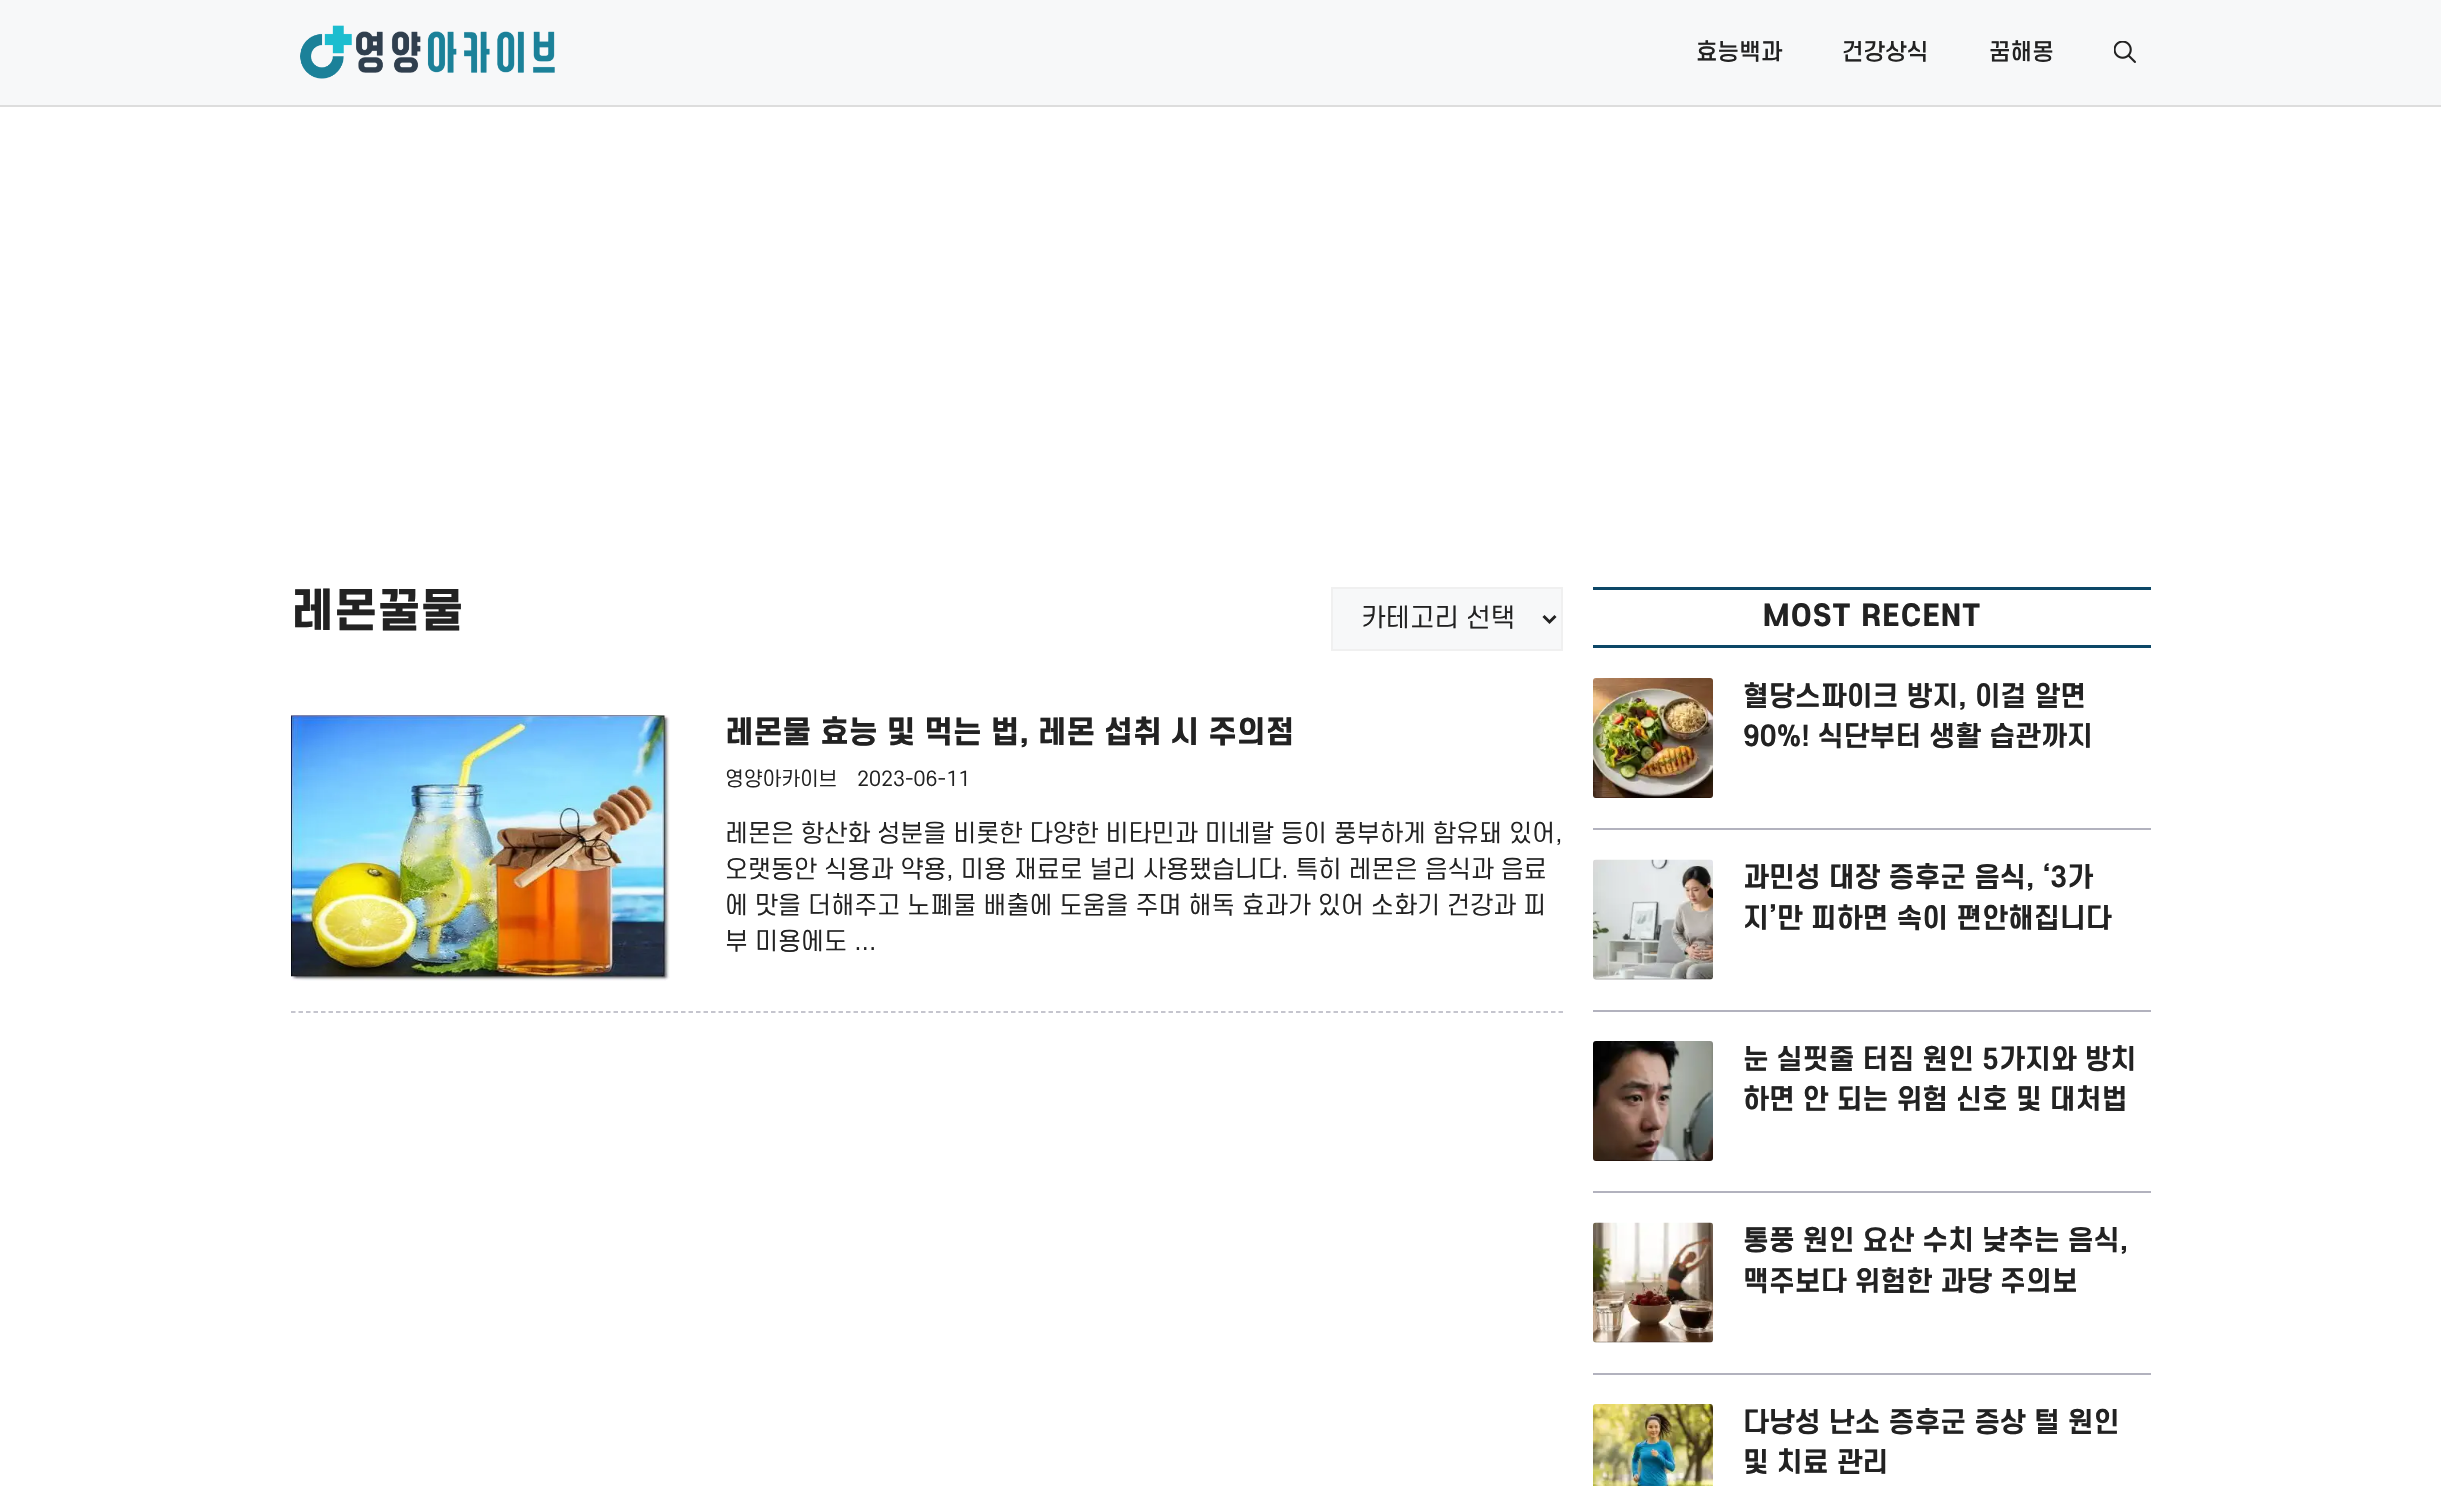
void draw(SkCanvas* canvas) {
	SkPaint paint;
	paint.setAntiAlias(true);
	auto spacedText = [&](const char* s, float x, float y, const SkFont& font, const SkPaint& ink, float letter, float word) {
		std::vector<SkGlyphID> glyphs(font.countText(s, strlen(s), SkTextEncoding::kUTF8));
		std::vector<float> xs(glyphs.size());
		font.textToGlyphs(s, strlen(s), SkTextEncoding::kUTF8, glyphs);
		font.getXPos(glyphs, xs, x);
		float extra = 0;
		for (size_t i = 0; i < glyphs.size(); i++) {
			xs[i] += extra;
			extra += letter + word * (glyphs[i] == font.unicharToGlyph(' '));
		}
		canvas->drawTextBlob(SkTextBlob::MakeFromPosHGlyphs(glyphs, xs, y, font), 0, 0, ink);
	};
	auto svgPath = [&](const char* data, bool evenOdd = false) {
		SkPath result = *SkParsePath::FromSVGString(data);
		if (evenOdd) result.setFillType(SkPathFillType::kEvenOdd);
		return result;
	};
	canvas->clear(0xffffffff);
	paint.setColor(0xfff7f8f9);
	canvas->drawRect(SkRect::MakeXYWH(0, 0, 2441, 105), paint);
	paint.setColor(0xffdddddd);
	canvas->drawRect(SkRect::MakeXYWH(0, 105, 2441, 2), paint);
	canvas->drawImageRect(SkImages::DeferredFromEncodedData(SkData::MakeFromFileName("img1.png")), SkRect::MakeXYWH(300, 25, 255, 54), SkSamplingOptions());
	SkFont f1(fontMgr->matchFamilyStyle("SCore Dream", SkFontStyle(500, SkFontStyle::kNormal_Width, SkFontStyle::kUpright_Slant)), 22.5);
	f1.setSubpixel(true);
	paint.setColor(0xff222222);
	canvas->drawString("효능백과", 1696, 60, f1, paint);
	canvas->drawString("건강상식", 1842, 60, f1, paint);
	canvas->drawString("꿈해몽", 1989, 60, f1, paint);
	canvas->drawImageRect(SkImages::DeferredFromEncodedData(SkData::MakeFromFileName("img2.png")), SkRect::MakeXYWH(2114, 41, 22, 22), SkSamplingOptions());
	SkFont f2(fontMgr->matchFamilyStyle("SCore Dream", SkFontStyle(800, SkFontStyle::kNormal_Width, SkFontStyle::kUpright_Slant)), 45);
	f2.setSubpixel(true);
	canvas->drawString("레몬꿀물", 291, 627, f2, paint);
	paint.setColor(0xfff7f8f9);
	canvas->drawRect(SkRect::MakeXYWH(1332, 588, 230, 62), paint);
	paint.setStroke(true);
	paint.setStrokeWidth(2);
	paint.setColor(0xfff0f0f0);
	canvas->drawRect(SkRect::MakeXYWH(1332, 588, 230, 62), paint);
	paint.setStrokeWidth(3);
	paint.setColor(0xff222222);
	canvas->drawPath(svgPath("M1543.5 616L1549.5 622L1555.5 616"), paint);
	SkFont f3(fontMgr->matchFamilyStyle("SCore Dream", SkFontStyle::Normal()), 25.5);
	f3.setSubpixel(true);
	paint.setStroke(false);
	canvas->drawString("카테고리 선택", 1361, 627, f3, paint);
	paint.setStroke(true);
	paint.setStrokeWidth(1.5);
	paint.setColor(0xffb2b2be);
	paint.setPathEffect(SkDashPathEffect::Make({{4.5f, 3}}, 0));
	canvas->drawPath(svgPath("M291 1012H1563"), paint);
	paint.setPathEffect(nullptr);
	canvas->drawImageRect(SkImages::DeferredFromEncodedData(SkData::MakeFromFileName("img3.png")), SkRect::MakeXYWH(291, 715, 379, 266), SkSamplingOptions());
	SkFont f4(fontMgr->matchFamilyStyle("SCore Dream", SkFontStyle(800, SkFontStyle::kNormal_Width, SkFontStyle::kUpright_Slant)), 30);
	f4.setSubpixel(true);
	paint.setStroke(false);
	paint.setColor(0xff222222);
	canvas->drawString("레몬물 효능 및 먹는 법, 레몬 섭취 시 주의점", 725, 743, f4, paint);
	SkFont f5(fontMgr->matchFamilyStyle("SCore Dream", SkFontStyle::Normal()), 19.5);
	f5.setSubpixel(true);
	canvas->drawString("영양아카이브", 725, 786, f5, paint);
	canvas->drawString("2023-06-11", 857, 786, f5, paint);
	SkFont f6(fontMgr->matchFamilyStyle("SCore Dream", SkFontStyle::Normal()), 24);
	f6.setSubpixel(true);
	canvas->drawString("레몬은 항산화 성분을 비롯한 다양한 비타민과 미네랄 등이 풍부하게 함유돼 있어,", 725, 842, f6, paint);
	canvas->drawString("오랫동안 식용과 약용, 미용 재료로 널리 사용됐습니다. 특히 레몬은 음식과 음료", 725, 878, f6, paint);
	canvas->drawString("에 맛을 더해주고 노폐물 배출에 도움을 주며 해독 효과가 있어 소화기 건강과 피", 725, 914, f6, paint);
	canvas->drawString("부 미용에도 ...", 725, 950, f6, paint);
	paint.setColor(0xff0c4767);
	canvas->drawRect(SkRect::MakeXYWH(1593, 587, 558, 3), paint);
	canvas->drawRect(SkRect::MakeXYWH(1593, 645, 558, 3), paint);
	SkFont f7(fontMgr->matchFamilyStyle("SCore Dream", SkFontStyle(800, SkFontStyle::kNormal_Width, SkFontStyle::kUpright_Slant)), 28.5);
	f7.setSubpixel(true);
	paint.setColor(0xff222222);
	spacedText("MOST RECENT", 1763, 626, f7, paint, 1.5, 0);
	paint.setColor(0xffb2b2be);
	canvas->drawRect(SkRect::MakeXYWH(1593, 828, 558, 2), paint);
	canvas->drawImageRect(SkImages::DeferredFromEncodedData(SkData::MakeFromFileName("img4.png")), SkRect::MakeXYWH(1593, 678, 120, 120), SkSamplingOptions());
	SkFont f8(fontMgr->matchFamilyStyle("SCore Dream", SkFontStyle::Bold()), 27);
	f8.setSubpixel(true);
	paint.setColor(0xff222222);
	canvas->drawString("혈당스파이크 방지, 이걸 알면", 1743, 706, f8, paint);
	canvas->drawString("90%! 식단부터 생활 습관까지", 1743, 746, f8, paint);
	paint.setColor(0xffb2b2be);
	canvas->drawRect(SkRect::MakeXYWH(1593, 1010, 558, 2), paint);
	canvas->drawImageRect(SkImages::DeferredFromEncodedData(SkData::MakeFromFileName("img5.png")), SkRect::MakeXYWH(1593, 859, 120, 121), SkSamplingOptions());
	paint.setColor(0xff222222);
	canvas->drawString("과민성 대장 증후군 음식, ‘3가", 1743, 887, f8, paint);
	canvas->drawString("지’만 피하면 속이 편안해집니다", 1743, 928, f8, paint);
	paint.setColor(0xffb2b2be);
	canvas->drawRect(SkRect::MakeXYWH(1593, 1191, 558, 2), paint);
	canvas->drawImageRect(SkImages::DeferredFromEncodedData(SkData::MakeFromFileName("img6.png")), SkRect::MakeXYWH(1593, 1041, 120, 120), SkSamplingOptions());
	paint.setColor(0xff222222);
	canvas->drawString("눈 실핏줄 터짐 원인 5가지와 방치", 1743, 1069, f8, paint);
	canvas->drawString("하면 안 되는 위험 신호 및 대처법", 1743, 1109, f8, paint);
	paint.setColor(0xffb2b2be);
	canvas->drawRect(SkRect::MakeXYWH(1593, 1373, 558, 2), paint);
	canvas->drawImageRect(SkImages::DeferredFromEncodedData(SkData::MakeFromFileName("img7.png")), SkRect::MakeXYWH(1593, 1222, 120, 121), SkSamplingOptions());
	paint.setColor(0xff222222);
	canvas->drawString("통풍 원인 요산 수치 낮추는 음식,", 1743, 1250, f8, paint);
	canvas->drawString("맥주보다 위험한 과당 주의보", 1743, 1291, f8, paint);
	canvas->drawImageRect(SkImages::DeferredFromEncodedData(SkData::MakeFromFileName("img8.png")), SkRect::MakeXYWH(1593, 1404, 120, 82), SkSamplingOptions());
	canvas->drawString("다낭성 난소 증후군 증상 털 원인", 1743, 1432, f8, paint);
	canvas->drawString("및 치료 관리", 1743, 1472, f8, paint);
}
